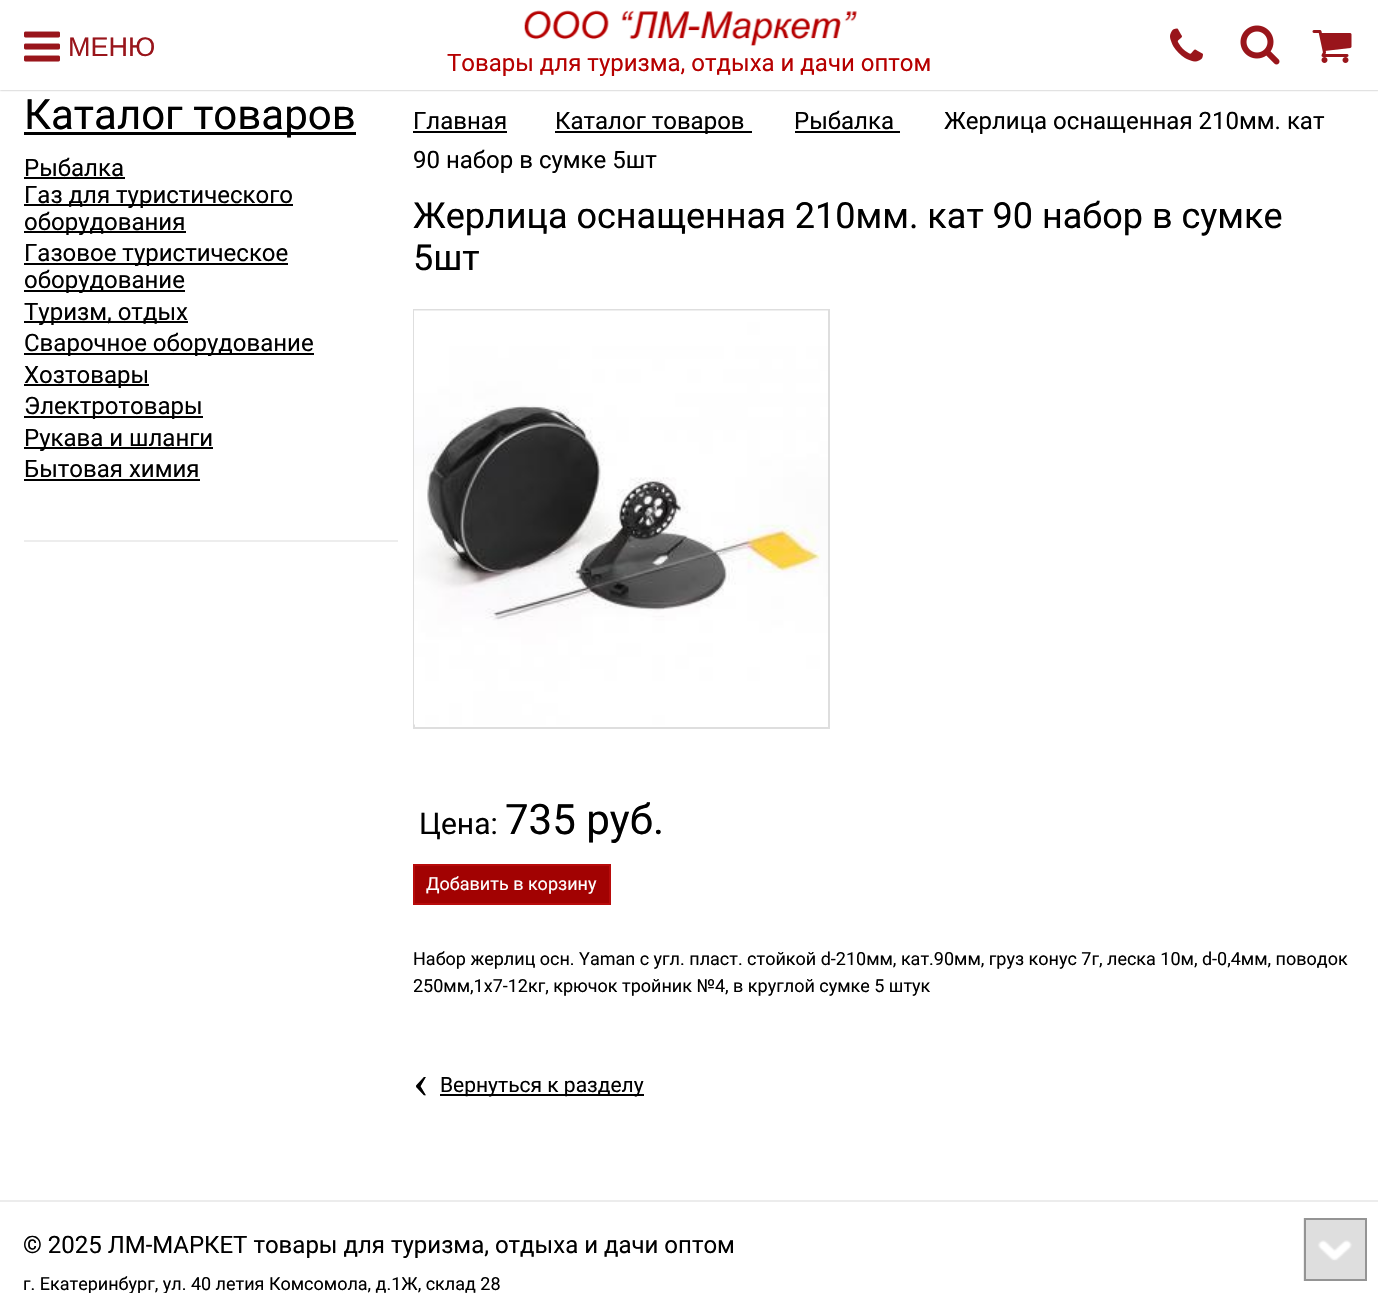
void draw(SkCanvas* canvas) {
	SkPaint paint;
	paint.setAntiAlias(true);
	canvas->clear(0xffffffff);
	canvas->save();
	canvas->clipRect(SkRect::MakeXYWH(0, 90, 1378, 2));
	paint.setColor(0xffa5a5a5);
	paint.setMaskFilter(SkMaskFilter::MakeBlur(kNormal_SkBlurStyle, 1));
	canvas->drawRect(SkRect::MakeXYWH(0, 0, 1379, 90), paint);
	paint.setMaskFilter(nullptr);
	canvas->restore();
	canvas->drawImageRect(SkImages::DeferredFromEncodedData(SkData::MakeFromFileName("img1.png")), SkRect::MakeXYWH(24, 31, 36, 31), SkSamplingOptions());
	SkFont f1(fontMgr->matchFamilyStyle("Liberation Sans", SkFontStyle::Normal()), 27);
	f1.setSubpixel(true);
	paint.setColor(0xff99151b);
	canvas->drawString("МЕНЮ", 68, 56, f1, paint);
	canvas->drawImageRect(SkImages::DeferredFromEncodedData(SkData::MakeFromFileName("img2.png")), SkRect::MakeXYWH(524, 10, 333, 36), SkSamplingOptions());
	canvas->drawImageRect(SkImages::DeferredFromEncodedData(SkData::MakeFromFileName("img3.png")), SkRect::MakeXYWH(1170, 28, 33, 34), SkSamplingOptions());
	canvas->drawImageRect(SkImages::DeferredFromEncodedData(SkData::MakeFromFileName("img4.png")), SkRect::MakeXYWH(1240, 25, 40, 40), SkSamplingOptions());
	canvas->drawImageRect(SkImages::DeferredFromEncodedData(SkData::MakeFromFileName("img5.png")), SkRect::MakeXYWH(1312, 30, 40, 33), SkSamplingOptions());
	SkFont f2(fontMgr->matchFamilyStyle("Roboto", SkFontStyle::Normal()), 24);
	f2.setSubpixel(true);
	paint.setColor(0xffb60000);
	canvas->drawString("Товары для туризма, отдыха и дачи оптом", 447, 71, f2, paint);
	paint.setColor(0xff000000);
	canvas->drawRect(SkRect::MakeXYWH(24, 132, 332, 3), paint);
	SkFont f3(fontMgr->matchFamilyStyle("Roboto", SkFontStyle::Normal()), 42);
	f3.setSubpixel(true);
	canvas->drawString("Каталог товаров", 24, 129, f3, paint);
	paint.setColor(0xffededed);
	canvas->drawRect(SkRect::MakeXYWH(24, 540, 374, 2), paint);
	paint.setColor(0xff000000);
	canvas->drawString("Рыбалка", 24, 176, f2, paint);
	canvas->drawRect(SkRect::MakeXYWH(24, 177, 101, 2), paint);
	canvas->drawRect(SkRect::MakeXYWH(24, 204, 269, 2), paint);
	canvas->drawString("Газ для туристического", 24, 203, f2, paint);
	canvas->drawRect(SkRect::MakeXYWH(24, 231, 162, 2), paint);
	canvas->drawString("оборудования", 24, 230, f2, paint);
	canvas->drawRect(SkRect::MakeXYWH(24, 263, 264, 2), paint);
	canvas->drawString("Газовое туристическое", 24, 261, f2, paint);
	canvas->drawRect(SkRect::MakeXYWH(24, 290, 161, 2), paint);
	canvas->drawString("оборудование", 24, 288, f2, paint);
	canvas->drawRect(SkRect::MakeXYWH(24, 321, 164, 2), paint);
	canvas->drawString("Туризм, отдых", 24, 320, f2, paint);
	canvas->drawRect(SkRect::MakeXYWH(24, 353, 290, 2), paint);
	canvas->drawString("Сварочное оборудование", 24, 351, f2, paint);
	canvas->drawRect(SkRect::MakeXYWH(24, 384, 125, 2), paint);
	canvas->drawString("Хозтовары", 24, 383, f2, paint);
	canvas->drawRect(SkRect::MakeXYWH(24, 416, 179, 2), paint);
	canvas->drawString("Электротовары", 24, 414, f2, paint);
	canvas->drawRect(SkRect::MakeXYWH(24, 447, 189, 2), paint);
	canvas->drawString("Рукава и шланги", 24, 446, f2, paint);
	canvas->drawString("Бытовая химия", 24, 477, f2, paint);
	canvas->drawRect(SkRect::MakeXYWH(24, 479, 176, 2), paint);
	canvas->drawString("Главная", 413, 129, f2, paint);
	canvas->drawRect(SkRect::MakeXYWH(413, 131, 94, 2), paint);
	canvas->drawRect(SkRect::MakeXYWH(555, 131, 197, 2), paint);
	canvas->drawString("Каталог товаров", 555, 129, f2, paint);
	canvas->drawString("Рыбалка", 794, 129, f2, paint);
	canvas->drawRect(SkRect::MakeXYWH(795, 131, 105, 2), paint);
	canvas->drawString("Жерлица оснащенная 210мм. кат", 944, 129, f2, paint);
	canvas->drawString("90 набор в сумке 5шт", 413, 168, f2, paint);
	SkFont f4(fontMgr->matchFamilyStyle("Roboto", SkFontStyle::Normal()), 36);
	f4.setSubpixel(true);
	canvas->drawString("Жерлица оснащенная 210мм. кат 90 набор в сумке", 413, 228, f4, paint);
	canvas->drawString("5шт", 413, 270, f4, paint);
	paint.setStroke(true);
	paint.setStrokeWidth(2);
	paint.setColor(0xffdedede);
	canvas->drawRect(SkRect::MakeXYWH(414, 310, 415, 418), paint);
	canvas->drawImageRect(SkImages::DeferredFromEncodedData(SkData::MakeFromFileName("img6.png")), SkRect::MakeXYWH(414, 310, 414, 415), SkSamplingOptions());
	SkFont f5(fontMgr->matchFamilyStyle("Roboto", SkFontStyle::Normal()), 30);
	f5.setSubpixel(true);
	paint.setStroke(false);
	paint.setColor(0xff000000);
	canvas->drawString("Цена:", 419, 834, f5, paint);
	canvas->drawString("735 руб.", 505, 834, f3, paint);
	paint.setColor(0xffa20202);
	canvas->drawRect(SkRect::MakeXYWH(414, 865, 196, 39), paint);
	paint.setStroke(true);
	paint.setColor(0xffb80b0b);
	canvas->drawRect(SkRect::MakeXYWH(414, 865, 196, 39), paint);
	SkFont f6(fontMgr->matchFamilyStyle("Roboto", SkFontStyle::Normal()), 18);
	f6.setSubpixel(true);
	paint.setStroke(false);
	paint.setColor(0xffffffff);
	canvas->drawString("Добавить в корзину", 426, 890, f6, paint);
	paint.setColor(0xff000000);
	canvas->drawString("Набор жерлиц осн. Yaman с угл. пласт. стойкой d-210мм, кат.90мм, груз конус 7г, леска 10м, d-0,4мм, поводок", 413, 965, f6, paint);
	canvas->drawString("250мм,1х7-12кг, крючок тройник №4, в круглой сумке 5 штук", 413, 992, f6, paint);
	SkFont f7(fontMgr->matchFamilyStyle("Liberation Serif", SkFontStyle::Normal()), 48);
	f7.setSubpixel(true);
	canvas->drawString("‹", 413, 1097, f7, paint);
	canvas->drawRect(SkRect::MakeXYWH(440, 1094, 204, 2), paint);
	SkFont f8(fontMgr->matchFamilyStyle("Roboto", SkFontStyle::Normal()), 21);
	f8.setSubpixel(true);
	canvas->drawString("Вернуться к разделу", 440, 1092, f8, paint);
	paint.setColor(0xffececec);
	canvas->drawRect(SkRect::MakeXYWH(0, 1200, 1378, 2), paint);
	paint.setColor(0xff000000);
	canvas->drawString("© 2025 ЛМ-МАРКЕТ товары для туризма, отдыха и дачи оптом", 23, 1253, f2, paint);
	canvas->drawString("г. Екатеринбург, ул. 40 летия Комсомола, д.1Ж, склад 28", 23, 1290, f6, paint);
	canvas->drawImageRect(SkImages::DeferredFromEncodedData(SkData::MakeFromFileName("img7.png")), SkRect::MakeXYWH(1303, 1218, 62, 63), SkSamplingOptions());
	paint.setStroke(true);
	paint.setColor(0xff949494);
	canvas->drawRect(SkRect::MakeXYWH(1305, 1219, 61, 61), paint);
}
